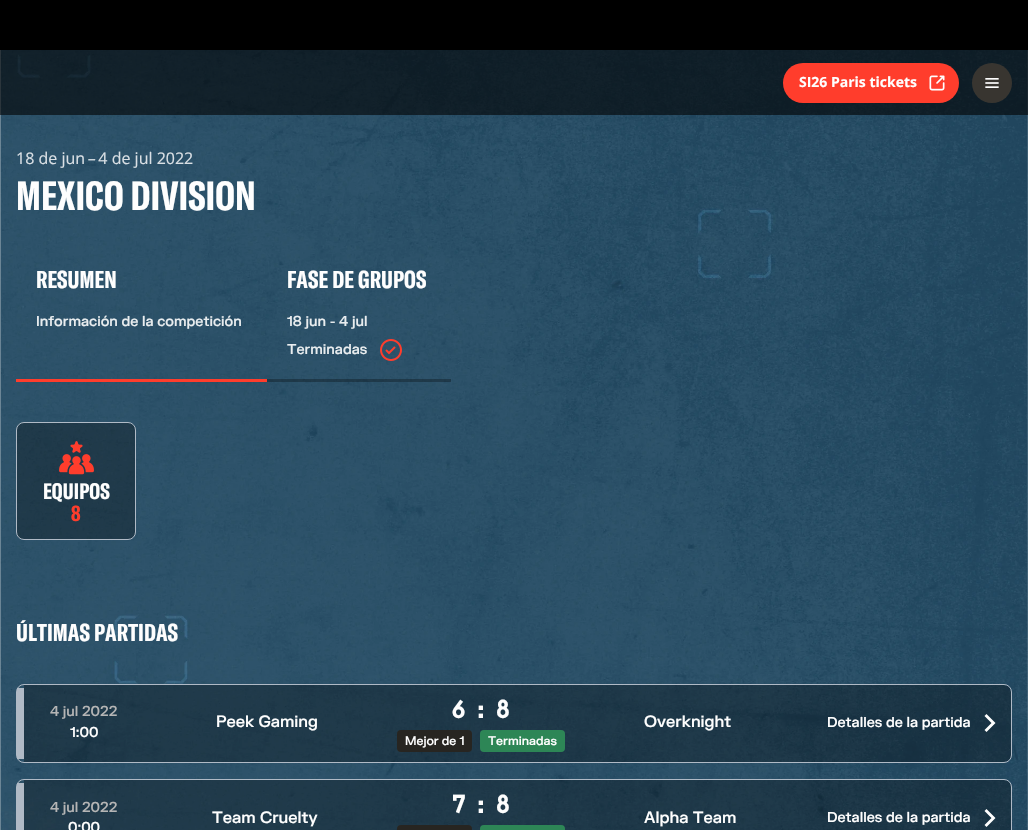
void draw(SkCanvas* canvas) {
	SkPaint paint;
	paint.setAntiAlias(true);
	auto spacedText = [&](const char* s, float x, float y, const SkFont& font, const SkPaint& ink, float letter, float word) {
		std::vector<SkGlyphID> glyphs(font.countText(s, strlen(s), SkTextEncoding::kUTF8));
		std::vector<float> xs(glyphs.size());
		font.textToGlyphs(s, strlen(s), SkTextEncoding::kUTF8, glyphs);
		font.getXPos(glyphs, xs, x);
		float extra = 0;
		for (size_t i = 0; i < glyphs.size(); i++) {
			xs[i] += extra;
			extra += letter + word * (glyphs[i] == font.unicharToGlyph(' '));
		}
		canvas->drawTextBlob(SkTextBlob::MakeFromPosHGlyphs(glyphs, xs, y, font), 0, 0, ink);
	};
	auto svgPath = [&](const char* data, bool evenOdd = false) {
		SkPath result = *SkParsePath::FromSVGString(data);
		if (evenOdd) result.setFillType(SkPathFillType::kEvenOdd);
		return result;
	};
	canvas->clear(0xffffffff);
	canvas->drawImageRect(SkImages::DeferredFromEncodedData(SkData::MakeFromFileName("img1.png")), SkRect::MakeXYWH(0, 50, 1028, 780), SkSamplingOptions());
	paint.setColor(0xff000000);
	canvas->drawRect(SkRect::MakeXYWH(0, 0, 1028, 50), paint);
	paint.setColor(0x99000000);
	canvas->drawRect(SkRect::MakeXYWH(0, 50, 1028, 65), paint);
	paint.setColor(0xffff3d2c);
	canvas->drawRoundRect(SkRect::MakeXYWH(783, 63, 176, 40), 20, 20, paint);
	SkFont f1(fontMgr->matchFamilyStyle("Open Sans", SkFontStyle::Bold()), 14);
	f1.setSubpixel(true);
	paint.setColor(0xfffefefe);
	canvas->drawString("SI26 Paris tickets", 799, 87, f1, paint);
	canvas->drawImageRect(SkImages::DeferredFromEncodedData(SkData::MakeFromFileName("img2.png")), SkRect::MakeXYWH(929, 75, 16, 16), SkSamplingOptions());
	paint.setColor(0xff383530);
	canvas->drawCircle(992, 83, 20, paint);
	canvas->drawImageRect(SkImages::DeferredFromEncodedData(SkData::MakeFromFileName("img3.png")), SkRect::MakeXYWH(985, 78, 14, 10), SkSamplingOptions());
	SkFont f2(fontMgr->matchFamilyStyle("Open Sans", SkFontStyle::Normal()), 16);
	f2.setSubpixel(true);
	paint.setColor(0xffdae0e5);
	canvas->drawString("18 de jun – 4 de jul 2022", 16, 164, f2, paint);
	SkFont f3(fontMgr->matchFamilyStyle("GT America", SkFontStyle::Bold()), 40);
	f3.setSubpixel(true);
	paint.setColor(0xfffefefe);
	spacedText("MEXICO DIVISION", 16, 210, f3, paint, 0.1, 0);
	paint.setColor(0xffff3d2c);
	canvas->drawRect(SkRect::MakeXYWH(16, 379, 251, 3), paint);
	SkFont f4(fontMgr->matchFamilyStyle("GT America", SkFontStyle::Bold()), 24);
	f4.setSubpixel(true);
	paint.setColor(0xfffefefe);
	spacedText("RESUMEN", 36, 288, f4, paint, 0.1, 0);
	SkFont f5(fontMgr->matchFamilyStyle("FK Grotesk", SkFontStyle(500, SkFontStyle::kNormal_Width, SkFontStyle::kUpright_Slant)), 14);
	f5.setSubpixel(true);
	paint.setColor(0xffe9edef);
	canvas->drawString("Información de la competición", 36, 326, f5, paint);
	paint.setColor(0x4d000000);
	canvas->drawRect(SkRect::MakeXYWH(267, 379, 184, 3), paint);
	paint.setColor(0xfffefefe);
	spacedText("FASE DE GRUPOS", 287, 288, f4, paint, 0.1, 0);
	paint.setColor(0xffe9edef);
	canvas->drawString("18 jun - 4 jul", 287, 326, f5, paint);
	canvas->drawString("Terminadas", 287, 354, f5, paint);
	canvas->drawImageRect(SkImages::DeferredFromEncodedData(SkData::MakeFromFileName("img4.png")), SkRect::MakeXYWH(380, 339, 22, 22), SkSamplingOptions());
	paint.setColor(0x4d000000);
	canvas->drawRoundRect(SkRect::MakeXYWH(16.5, 422.5, 119, 117), 7.5, 7.5, paint);
	paint.setStroke(true);
	paint.setStrokeWidth(1);
	paint.setColor(0xffb0bac6);
	canvas->drawRoundRect(SkRect::MakeXYWH(16.5, 422.5, 119, 117), 7.5, 7.5, paint);
	canvas->drawImageRect(SkImages::DeferredFromEncodedData(SkData::MakeFromFileName("img5.png")), SkRect::MakeXYWH(59, 441, 35, 34), SkSamplingOptions());
	SkFont f6(fontMgr->matchFamilyStyle("GT America", SkFontStyle::Bold()), 22);
	f6.setSubpixel(true);
	paint.setStroke(false);
	paint.setColor(0xfffefefe);
	spacedText("EQUIPOS", 43, 499, f6, paint, 0.1, 0);
	paint.setColor(0xffff3d2c);
	spacedText("8", 71, 521, f6, paint, 0.1, 0);
	paint.setColor(0xfffefefe);
	spacedText("ÚLTIMAS PARTIDAS", 16, 641, f4, paint, 0.1, 0);
	paint.setColor(0x4d000000);
	canvas->drawPath(svgPath("M24 685H1004C1008 685 1011 688 1011 692V755C1011 759 1008 762 1004 762H24Z"), paint);
	paint.setStroke(true);
	paint.setColor(0xffb0bac6);
	canvas->drawRoundRect(SkRect::MakeXYWH(16.5, 684.5, 995, 78), 7.5, 7.5, paint);
	paint.setStroke(false);
	canvas->drawRect(SkRect::MakeXYWH(17, 688, 7, 71), paint);
	paint.setColor(0xffb5b5b5);
	canvas->drawString("4 jul 2022", 50, 716, f5, paint);
	paint.setColor(0xfffefefe);
	canvas->drawString("1:00", 70, 737, f5, paint);
	SkFont f7(fontMgr->matchFamilyStyle("FK Grotesk", SkFontStyle(500, SkFontStyle::kNormal_Width, SkFontStyle::kUpright_Slant)), 16);
	f7.setSubpixel(true);
	canvas->drawString("Peek Gaming", 216, 727, f7, paint);
	SkFont f8(fontMgr->matchFamilyStyle("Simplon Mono", SkFontStyle::Bold()), 26);
	f8.setSubpixel(true);
	canvas->drawString("6", 451, 718, f8, paint);
	canvas->drawString(":", 473, 718, f8, paint);
	canvas->drawString("8", 495, 718, f8, paint);
	paint.setColor(0xff272521);
	canvas->drawRoundRect(SkRect::MakeXYWH(397, 730, 75, 22), 4, 4, paint);
	SkFont f9(fontMgr->matchFamilyStyle("FK Grotesk", SkFontStyle(500, SkFontStyle::kNormal_Width, SkFontStyle::kUpright_Slant)), 12);
	f9.setSubpixel(true);
	paint.setColor(0xfffefefe);
	canvas->drawString("Mejor de 1", 405, 745, f9, paint);
	paint.setColor(0xff2d8656);
	canvas->drawRoundRect(SkRect::MakeXYWH(480, 730, 85, 22), 4, 4, paint);
	paint.setColor(0xfffefefe);
	canvas->drawString("Terminadas", 488, 745, f9, paint);
	canvas->drawString("Overknight", 644, 727, f7, paint);
	canvas->drawString("Detalles de la partida", 827, 727, f5, paint);
	canvas->drawPath(svgPath("M984.5 716L991.5 723L984.5 730L986.5 732L995.5 723L986.5 714Z"), paint);
	paint.setColor(0x4d000000);
	canvas->drawPath(svgPath("M24 780H1004C1008 780 1011 783 1011 787V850C1011 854 1008 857 1004 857H24Z"), paint);
	paint.setStroke(true);
	paint.setColor(0xffb0bac6);
	canvas->drawRoundRect(SkRect::MakeXYWH(16.5, 779.5, 995, 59), 7.5, 7.5, paint);
	paint.setStroke(false);
	canvas->drawRect(SkRect::MakeXYWH(17, 783, 7, 47), paint);
	paint.setColor(0xffb5b5b5);
	canvas->drawString("4 jul 2022", 50, 812, f5, paint);
	paint.setColor(0xfffefefe);
	canvas->drawString("0:00", 68, 832, f5, paint);
	canvas->drawString("7", 451, 813, f8, paint);
	canvas->drawString(":", 473, 813, f8, paint);
	canvas->drawString("8", 495, 813, f8, paint);
	paint.setColor(0xff272521);
	canvas->drawRoundRect(SkRect::MakeXYWH(397, 825, 75, 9), 4, 4, paint);
	paint.setColor(0xff2d8656);
	canvas->drawRoundRect(SkRect::MakeXYWH(480, 825, 85, 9), 4, 4, paint);
	paint.setColor(0xfffefefe);
	canvas->drawString("Team Cruelty", 212, 823, f7, paint);
	canvas->drawString("Alpha Team", 644, 823, f7, paint);
	canvas->drawString("Detalles de la partida", 827, 822, f5, paint);
	canvas->drawPath(svgPath("M984.5 811L991.5 818L984.5 825L986.5 827L995.5 818L986.5 809Z"), paint);
}
